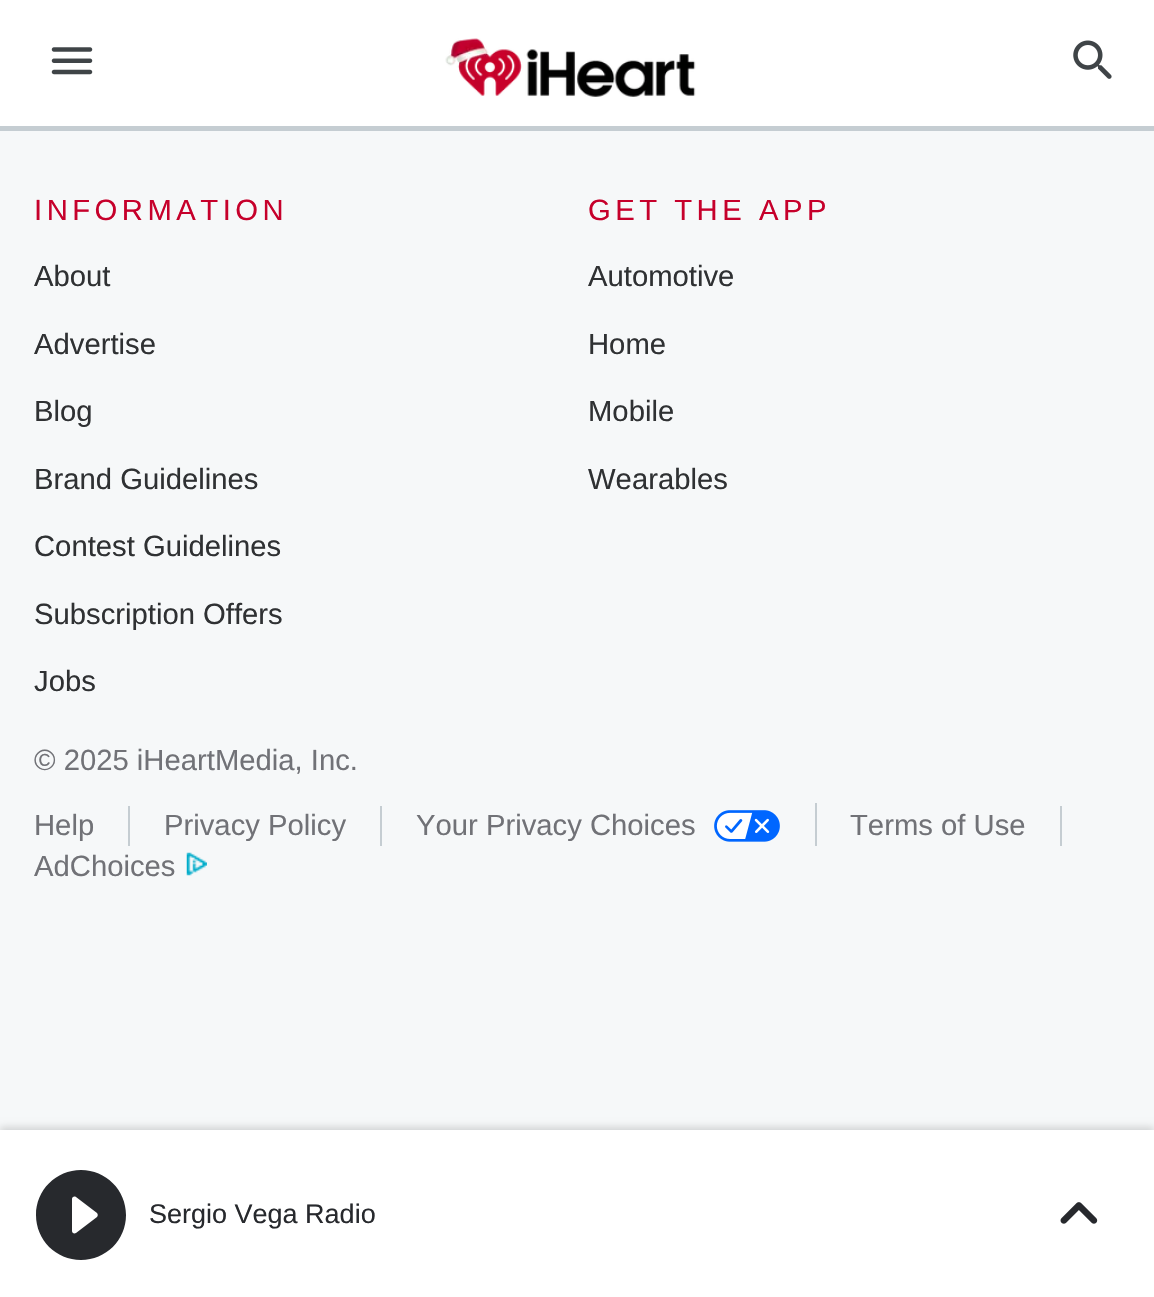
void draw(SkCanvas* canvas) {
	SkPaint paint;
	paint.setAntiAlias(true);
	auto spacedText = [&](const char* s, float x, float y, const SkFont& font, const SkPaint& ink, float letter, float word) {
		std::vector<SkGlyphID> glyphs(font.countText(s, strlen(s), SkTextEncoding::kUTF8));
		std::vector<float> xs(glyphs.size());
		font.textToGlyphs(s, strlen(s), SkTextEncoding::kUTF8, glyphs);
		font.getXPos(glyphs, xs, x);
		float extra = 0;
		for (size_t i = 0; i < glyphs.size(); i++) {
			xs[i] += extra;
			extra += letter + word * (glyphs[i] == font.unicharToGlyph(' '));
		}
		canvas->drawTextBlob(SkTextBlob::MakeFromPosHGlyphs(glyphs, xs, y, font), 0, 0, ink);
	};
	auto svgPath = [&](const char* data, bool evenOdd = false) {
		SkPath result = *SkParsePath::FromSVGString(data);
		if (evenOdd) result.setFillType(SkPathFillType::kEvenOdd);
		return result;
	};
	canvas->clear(0xfff6f8f9);
	paint.setColor(0xffffffff);
	canvas->drawRect(SkRect::MakeXYWH(0, 0, 1154, 126), paint);
	paint.setColor(0xffc5cdd2);
	canvas->drawRect(SkRect::MakeXYWH(0, 126, 1154, 5), paint);
	canvas->drawImageRect(SkImages::DeferredFromEncodedData(SkData::MakeFromFileName("img1.png")), SkRect::MakeXYWH(51, 47, 42, 28), SkSamplingOptions());
	canvas->drawImageRect(SkImages::DeferredFromEncodedData(SkData::MakeFromFileName("img2.png")), SkRect::MakeXYWH(445, 38, 251, 59), SkSamplingOptions());
	canvas->drawImageRect(SkImages::DeferredFromEncodedData(SkData::MakeFromFileName("img3.png")), SkRect::MakeXYWH(1073, 40, 39, 39), SkSamplingOptions());
	SkFont f1(fontMgr->matchFamilyStyle("Liberation Sans", SkFontStyle::Normal()), 29.25);
	f1.setSubpixel(true);
	paint.setColor(0xffc6002b);
	spacedText("INFORMATION", 34, 220, f1, paint, 4.5, 0);
	paint.setColor(0xff2f3133);
	canvas->drawString("About", 34, 286, f1, paint);
	canvas->drawString("Advertise", 34, 354, f1, paint);
	canvas->drawString("Blog", 34, 421, f1, paint);
	canvas->drawString("Brand Guidelines", 34, 489, f1, paint);
	canvas->drawString("Contest Guidelines", 34, 556, f1, paint);
	canvas->drawString("Subscription Offers", 34, 624, f1, paint);
	canvas->drawString("Jobs", 34, 691, f1, paint);
	paint.setColor(0xffc6002b);
	spacedText("GET THE APP", 588, 220, f1, paint, 4.5, 0);
	paint.setColor(0xff2f3133);
	canvas->drawString("Automotive", 588, 286, f1, paint);
	canvas->drawString("Home", 588, 354, f1, paint);
	canvas->drawString("Mobile", 588, 421, f1, paint);
	canvas->drawString("Wearables", 588, 489, f1, paint);
	paint.setColor(0xff717277);
	canvas->drawString("© 2025 iHeartMedia, Inc.", 34, 770, f1, paint);
	paint.setColor(0xffc5cdd2);
	canvas->drawRect(SkRect::MakeXYWH(128, 806, 2, 40), paint);
	paint.setColor(0xff717277);
	canvas->drawString("Help", 34, 835, f1, paint);
	paint.setColor(0xffc5cdd2);
	canvas->drawRect(SkRect::MakeXYWH(380, 806, 2, 40), paint);
	paint.setColor(0xff717277);
	canvas->drawString("Privacy Policy", 164, 835, f1, paint);
	paint.setColor(0xffc5cdd2);
	canvas->drawRect(SkRect::MakeXYWH(815, 803, 2, 43), paint);
	paint.setColor(0xff717277);
	canvas->drawString("Your Privacy Choices", 416, 835, f1, paint);
	canvas->drawImageRect(SkImages::DeferredFromEncodedData(SkData::MakeFromFileName("img4.png")), SkRect::MakeXYWH(714, 810, 66, 32), SkSamplingOptions());
	paint.setColor(0xffc5cdd2);
	canvas->drawRect(SkRect::MakeXYWH(1060, 806, 2, 40), paint);
	paint.setColor(0xff717277);
	canvas->drawString("Terms of Use", 850, 835, f1, paint);
	canvas->drawString("AdChoices", 34, 876, f1, paint);
	canvas->drawImageRect(SkImages::DeferredFromEncodedData(SkData::MakeFromFileName("img5.png")), SkRect::MakeXYWH(186, 852, 21, 24), SkSamplingOptions());
	paint.setColor(0x26000000);
	paint.setMaskFilter(SkMaskFilter::MakeBlur(kNormal_SkBlurStyle, 3.5));
	canvas->drawRect(SkRect::MakeXYWH(0, 1127, 1154, 169), paint);
	paint.setMaskFilter(nullptr);
	paint.setColor(0xffffffff);
	canvas->drawRect(SkRect::MakeXYWH(0, 1130, 1154, 167), paint);
	paint.setColor(0xff27292d);
	canvas->drawPath(svgPath("M81 1170C56 1170 36 1190 36 1215C36 1240 56 1260 81 1260C106 1260 126 1240 126 1215C126 1190 106 1170 81 1170ZM72 1231V1199C72 1197 74 1196 76 1197L97 1213C98 1214 98 1216 97 1217L76 1233C74 1234 72 1233 72 1231Z"), paint);
	SkFont f2(fontMgr->matchFamilyStyle("Liberation Sans", SkFontStyle::Normal()), 27);
	f2.setSubpixel(true);
	canvas->drawString("Sergio Vega Radio", 149, 1223, f2, paint);
	canvas->drawImageRect(SkImages::DeferredFromEncodedData(SkData::MakeFromFileName("img6.png")), SkRect::MakeXYWH(1060, 1202, 38, 22), SkSamplingOptions());
}
